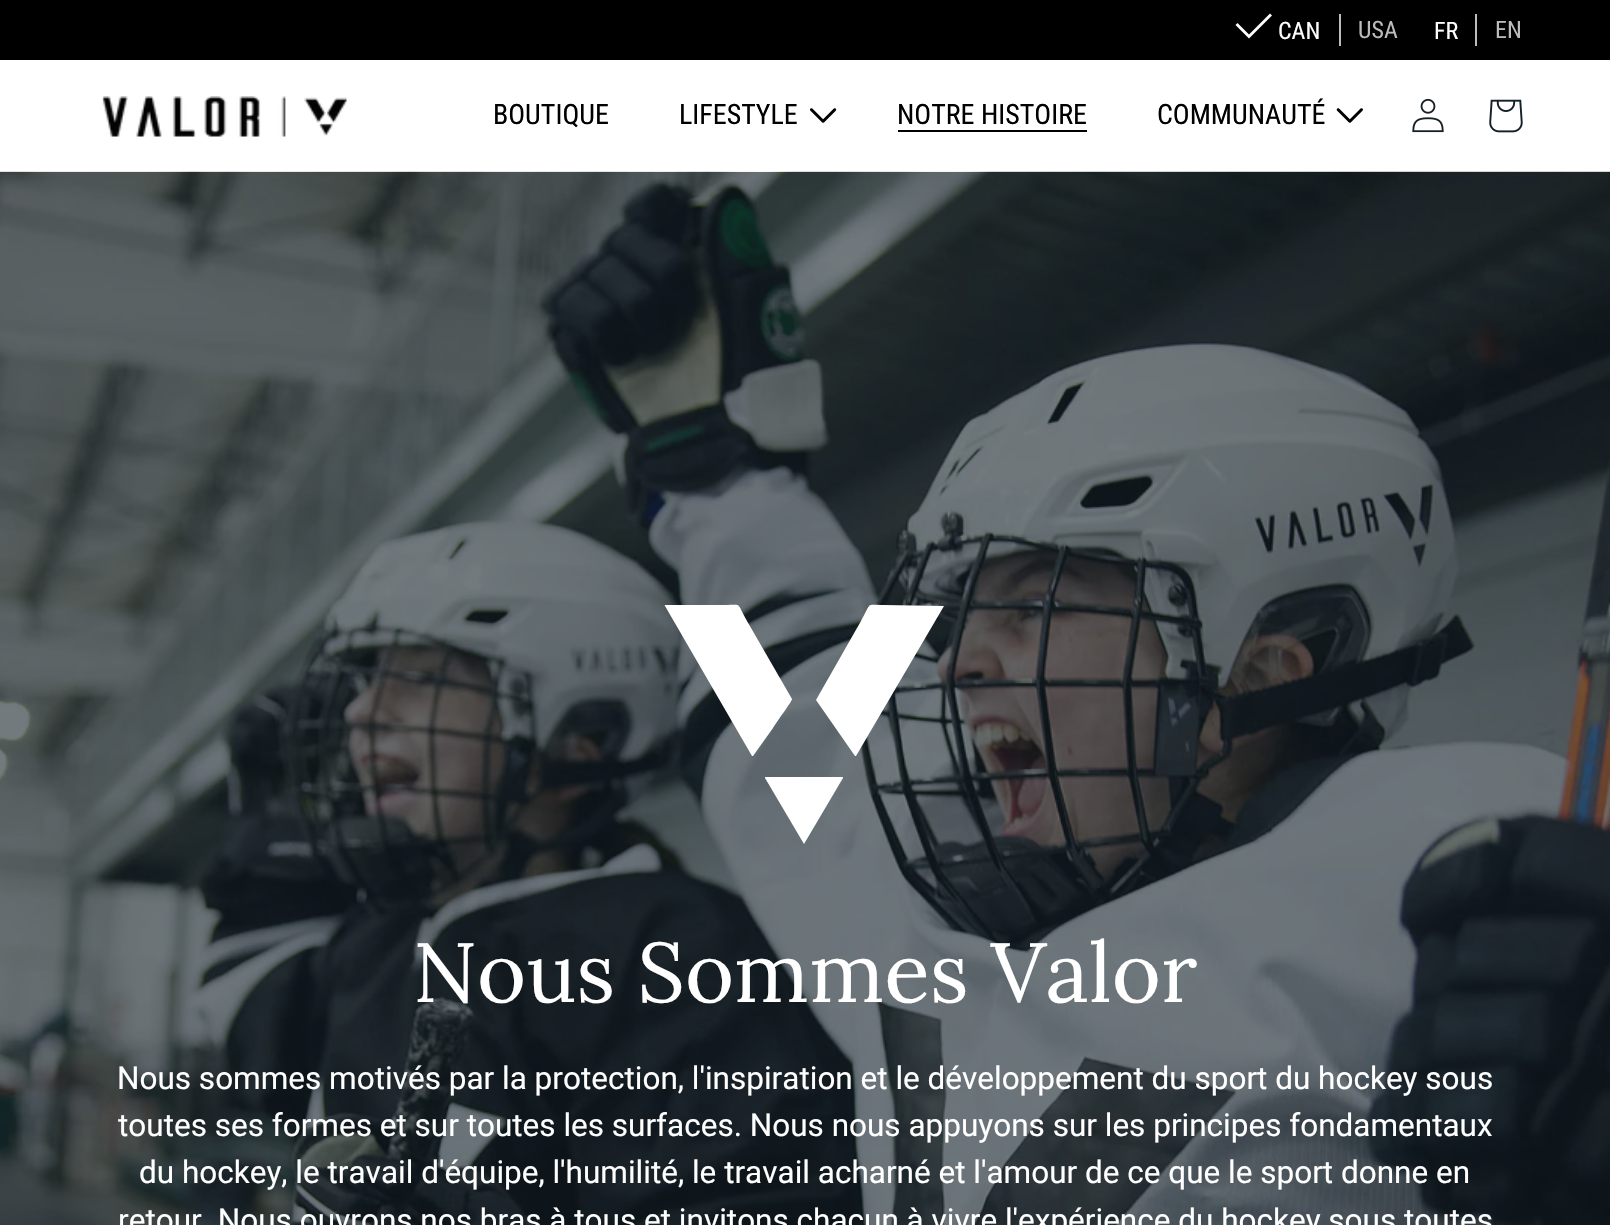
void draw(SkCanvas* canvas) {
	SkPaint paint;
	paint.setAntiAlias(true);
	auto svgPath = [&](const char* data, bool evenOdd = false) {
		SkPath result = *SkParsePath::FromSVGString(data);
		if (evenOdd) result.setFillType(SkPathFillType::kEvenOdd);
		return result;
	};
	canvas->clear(0xffffffff);
	paint.setColor(0xff000000);
	canvas->drawRect(SkRect::MakeXYWH(0, 0, 1610, 60), paint);
	paint.setColor(0xffffffff);
	canvas->drawPath(svgPath("M1237.5 23L1235.5 25L1249 38.5L1272 15.5L1270 13.5L1249 34.5Z", true), paint);
	paint.setColor(0xffbcbcbc);
	canvas->drawRect(SkRect::MakeXYWH(1339, 14, 2, 32), paint);
	SkFont f1(fontMgr->matchFamilyStyle("Roboto Condensed", SkFontStyle::Normal()), 24);
	f1.setSubpixel(true);
	paint.setColor(0xffffffff);
	canvas->drawString("CAN", 1278, 39, f1, paint);
	paint.setColor(0xffbcbcbc);
	canvas->drawString("USA", 1358, 38, f1, paint);
	canvas->drawRect(SkRect::MakeXYWH(1475, 14, 2, 32), paint);
	paint.setColor(0xffffffff);
	canvas->drawString("FR", 1434, 39, f1, paint);
	paint.setColor(0xffbcbcbc);
	canvas->drawString("EN", 1495, 38, f1, paint);
	canvas->drawImageRect(SkImages::DeferredFromEncodedData(SkData::MakeFromFileName("img1.png")), SkRect::MakeXYWH(102, 96, 245, 41), SkSamplingOptions());
	SkFont f2(fontMgr->matchFamilyStyle("Roboto Condensed", SkFontStyle::Normal()), 28);
	f2.setSubpixel(true);
	paint.setColor(0xff000000);
	canvas->drawString("BOUTIQUE", 493, 124, f2, paint);
	canvas->drawString("LIFESTYLE", 679, 124, f2, paint);
	canvas->drawImageRect(SkImages::DeferredFromEncodedData(SkData::MakeFromFileName("img2.png")), SkRect::MakeXYWH(810, 108, 27, 15), SkSamplingOptions());
	canvas->drawString("NOTRE HISTOIRE", 897, 124, f2, paint);
	canvas->drawRect(SkRect::MakeXYWH(898, 130, 189, 2), paint);
	canvas->drawString("COMMUNAUTÉ", 1157, 124, f2, paint);
	canvas->drawImageRect(SkImages::DeferredFromEncodedData(SkData::MakeFromFileName("img3.png")), SkRect::MakeXYWH(1336, 108, 27, 15), SkSamplingOptions());
	canvas->drawImageRect(SkImages::DeferredFromEncodedData(SkData::MakeFromFileName("img4.png")), SkRect::MakeXYWH(1412, 98, 32, 35), SkSamplingOptions());
	canvas->drawImageRect(SkImages::DeferredFromEncodedData(SkData::MakeFromFileName("img5.png")), SkRect::MakeXYWH(1489, 99, 34, 34), SkSamplingOptions());
	paint.setColor(0xff142027);
	canvas->drawRect(SkRect::MakeXYWH(0, 172, 1610, 1053), paint);
	canvas->drawImageRect(SkImages::DeferredFromEncodedData(SkData::MakeFromFileName("img6.png")), SkRect::MakeXYWH(0, 171, 1610, 1054), SkSamplingOptions());
	paint.setColor(0xffffffff);
	canvas->drawPath(svgPath("M944 606L883 605C865 605 872 602 861 621L816 700L855 756H856Z"), paint);
	canvas->drawPath(svgPath("M792 699L747 621C736 602 743 605 725 605H665C665 605 664 606 665 606L752 756H753L773 728C775 724 793 700 792 699Z"), paint);
	canvas->drawPath(svgPath("M842 777H766C765 777 765 777 765 778L804 844L843 778C843 777 843 777 842 777Z"), paint);
	SkFont f3(fontMgr->matchFamilyStyle("Lora", SkFontStyle::Normal()), 84);
	f3.setSubpixel(true);
	canvas->drawString("Nous Sommes Valor", 413, 1002, f3, paint);
	SkFont f4(fontMgr->matchFamilyStyle("Roboto", SkFontStyle::Normal()), 31.5);
	f4.setSubpixel(true);
	canvas->drawString("Nous sommes motivés par la protection, l'inspiration et le développement du sport du hockey sous", 117, 1089, f4, paint);
	canvas->drawString("toutes ses formes et sur toutes les surfaces. Nous nous appuyons sur les principes fondamentaux", 118, 1136, f4, paint);
	canvas->drawString("du hockey, le travail d'équipe, l'humilité, le travail acharné et l'amour de ce que le sport donne en", 139, 1183, f4, paint);
	canvas->drawString("retour. Nous ouvrons nos bras à tous et invitons chacun à vivre l'expérience du hockey sous toutes", 118, 1231, f4, paint);
}
